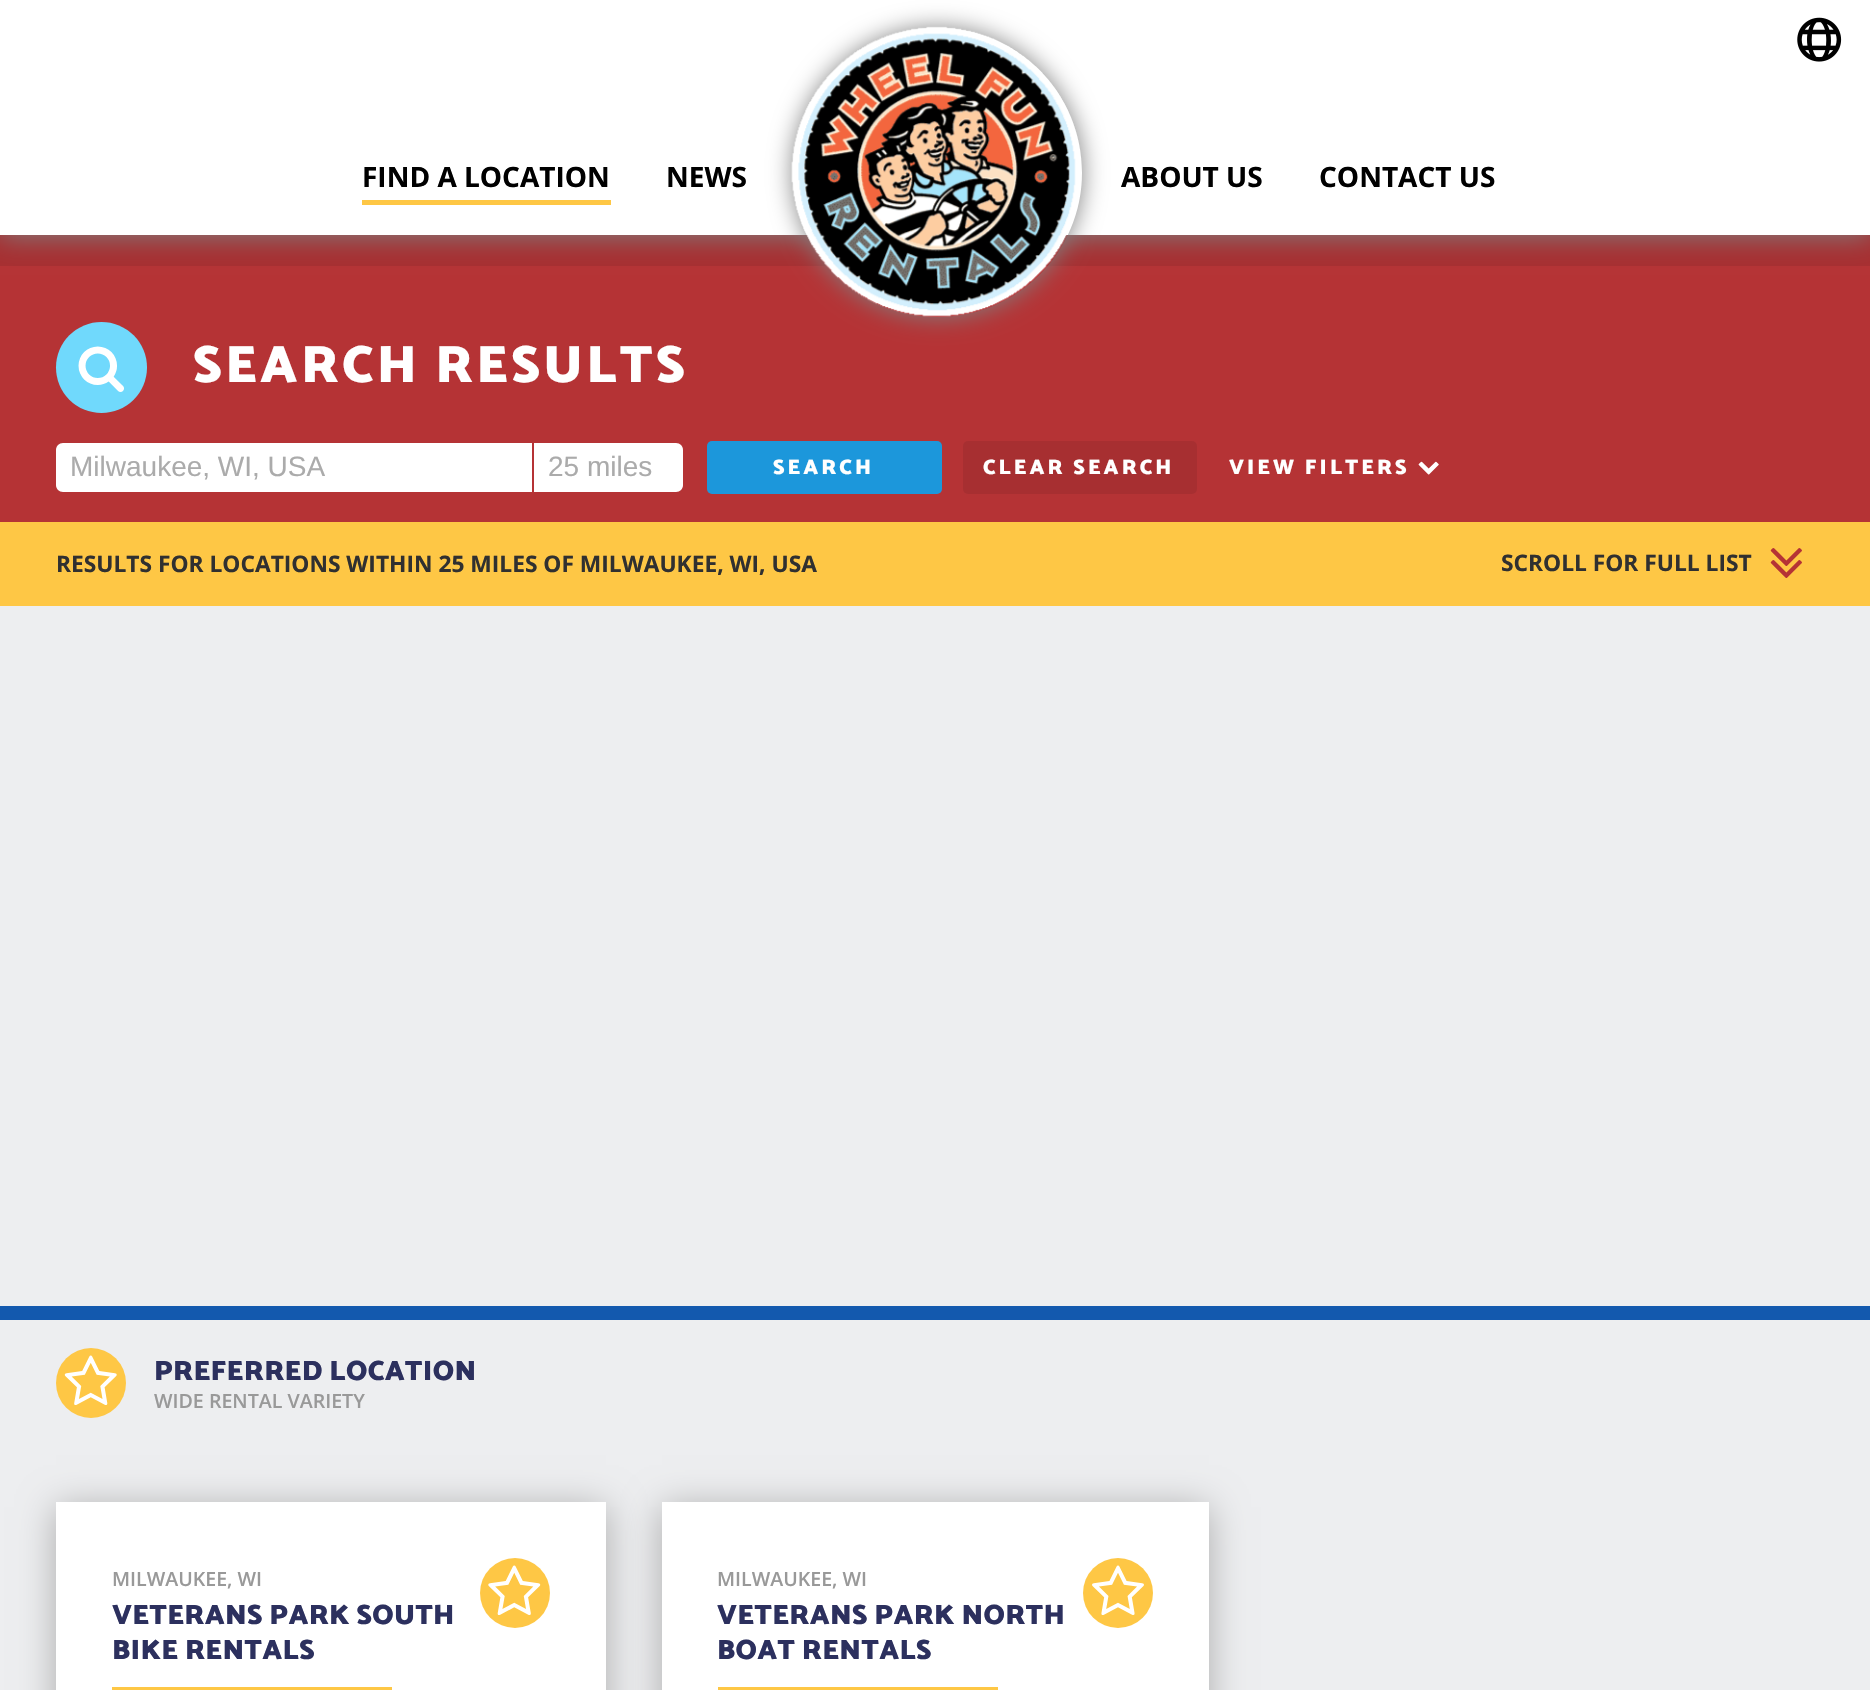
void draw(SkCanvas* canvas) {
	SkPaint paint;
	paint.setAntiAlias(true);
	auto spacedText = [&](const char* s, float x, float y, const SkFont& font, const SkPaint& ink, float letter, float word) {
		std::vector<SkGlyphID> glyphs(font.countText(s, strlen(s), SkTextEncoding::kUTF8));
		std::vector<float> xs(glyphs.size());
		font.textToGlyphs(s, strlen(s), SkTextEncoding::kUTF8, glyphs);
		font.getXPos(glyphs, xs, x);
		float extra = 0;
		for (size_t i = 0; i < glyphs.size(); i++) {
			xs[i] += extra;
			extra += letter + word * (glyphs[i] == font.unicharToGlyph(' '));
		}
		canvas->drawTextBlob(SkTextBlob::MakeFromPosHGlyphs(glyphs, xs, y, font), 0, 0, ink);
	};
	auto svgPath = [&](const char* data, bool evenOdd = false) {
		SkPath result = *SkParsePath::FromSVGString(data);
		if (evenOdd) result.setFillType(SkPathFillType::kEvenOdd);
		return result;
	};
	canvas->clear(0xffedeef0);
	paint.setColor(0xffb53335);
	canvas->drawRect(SkRect::MakeXYWH(0, 266, 1870, 256), paint);
	paint.setColor(0xffa72f31);
	canvas->drawRect(SkRect::MakeXYWH(0, 235, 1870, 31), paint);
	paint.setColor(0xff808080);
	paint.setMaskFilter(SkMaskFilter::MakeBlur(kNormal_SkBlurStyle, 13));
	canvas->drawRect(SkRect::MakeXYWH(0, 2, 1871, 234), paint);
	paint.setMaskFilter(nullptr);
	paint.setColor(0xffffffff);
	canvas->drawRect(SkRect::MakeXYWH(0, 0, 1870, 235), paint);
	canvas->drawImageRect(SkImages::DeferredFromEncodedData(SkData::MakeFromFileName("img1.png")), SkRect::MakeXYWH(1797, 17, 45, 45), SkSamplingOptions());
	canvas->save();
	canvas->clipPath(svgPath("M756 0H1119V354H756ZM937.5 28C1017.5 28 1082 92.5 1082 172.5C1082 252.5 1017.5 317 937.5 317C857.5 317 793 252.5 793 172.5C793 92.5 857.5 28 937.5 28Z", true), true);
	paint.setColor(0xff808080);
	paint.setMaskFilter(SkMaskFilter::MakeBlur(kNormal_SkBlurStyle, 12));
	canvas->drawRoundRect(SkRect::MakeXYWH(793, 28, 289, 289), 144.5, 144.5, paint);
	paint.setMaskFilter(nullptr);
	canvas->restore();
	canvas->drawImageRect(SkImages::DeferredFromEncodedData(SkData::MakeFromFileName("img2.png")), SkRect::MakeXYWH(791, 26, 291, 291), SkSamplingOptions());
	SkFont f1(fontMgr->matchFamilyStyle("Open Sans", SkFontStyle::Bold()), 28);
	f1.setSubpixel(true);
	paint.setColor(0xff000000);
	canvas->drawString("FIND A LOCATION", 362, 187, f1, paint);
	paint.setColor(0xfffec745);
	canvas->drawRect(SkRect::MakeXYWH(362, 200, 249, 5), paint);
	paint.setColor(0xff000000);
	canvas->drawString("NEWS", 666, 187, f1, paint);
	canvas->drawString("ABOUT US", 1121, 187, f1, paint);
	canvas->drawString("CONTACT US", 1319, 187, f1, paint);
	paint.setColor(0xff70d9fc);
	canvas->drawCircle(101.5, 367.5, 45.5, paint);
	canvas->drawImageRect(SkImages::DeferredFromEncodedData(SkData::MakeFromFileName("img3.png")), SkRect::MakeXYWH(78, 346, 46, 46), SkSamplingOptions());
	SkFont f2(fontMgr->matchFamilyStyle("Catamaran", SkFontStyle(900, SkFontStyle::kNormal_Width, SkFontStyle::kUpright_Slant)), 52.5);
	f2.setSubpixel(true);
	paint.setColor(0xffffffff);
	spacedText("SEARCH RESULTS", 193, 382, f2, paint, 3.5, 0);
	canvas->drawPath(svgPath("M63 443H532V492H63C59 492 56 489 56 485V450C56 446 59 443 63 443Z"), paint);
	SkFont f3(fontMgr->matchFamilyStyle("Liberation Sans", SkFontStyle::Normal()), 28);
	f3.setSubpixel(true);
	paint.setColor(0xffababab);
	canvas->drawString("Milwaukee, WI, USA", 70, 476, f3, paint);
	paint.setColor(0xffffffff);
	canvas->drawPath(svgPath("M534 443H676C680 443 683 446 683 450V485C683 489 680 492 676 492H534Z"), paint);
	paint.setColor(0xffababab);
	canvas->drawString("25 miles", 548, 476, f3, paint);
	paint.setColor(0xff1c97db);
	canvas->drawRoundRect(SkRect::MakeXYWH(707, 441, 235, 53), 5, 5, paint);
	SkFont f4(fontMgr->matchFamilyStyle("Catamaran", SkFontStyle(900, SkFontStyle::kNormal_Width, SkFontStyle::kUpright_Slant)), 21);
	f4.setSubpixel(true);
	paint.setColor(0xffffffff);
	spacedText("SEARCH", 773, 474, f4, paint, 3.1, 0);
	paint.setColor(0xffa72f31);
	canvas->drawRoundRect(SkRect::MakeXYWH(963, 441, 234, 53), 5, 5, paint);
	paint.setColor(0xffffffff);
	spacedText("CLEAR SEARCH", 983, 474, f4, paint, 3.1, 0);
	spacedText("VIEW FILTERS", 1229, 474, f4, paint, 3.1, 0);
	canvas->drawImageRect(SkImages::DeferredFromEncodedData(SkData::MakeFromFileName("img4.png")), SkRect::MakeXYWH(1418, 461, 21, 14), SkSamplingOptions());
	paint.setColor(0xfffec745);
	canvas->drawRect(SkRect::MakeXYWH(0, 522, 1870, 84), paint);
	SkFont f5(fontMgr->matchFamilyStyle("Open Sans", SkFontStyle::Bold()), 22.75);
	f5.setSubpixel(true);
	paint.setColor(0xff303030);
	canvas->drawString("RESULTS FOR LOCATIONS WITHIN 25 MILES OF MILWAUKEE, WI, USA", 56, 572, f5, paint);
	canvas->drawString("SCROLL FOR FULL LIST", 1501, 571, f5, paint);
	canvas->drawImageRect(SkImages::DeferredFromEncodedData(SkData::MakeFromFileName("img5.png")), SkRect::MakeXYWH(1770, 548, 32, 30), SkSamplingOptions());
	paint.setColor(0xff1359ae);
	canvas->drawRect(SkRect::MakeXYWH(0, 1306, 1870, 14), paint);
	paint.setColor(0xfffec745);
	canvas->drawCircle(91, 1383, 35, paint);
	canvas->drawImageRect(SkImages::DeferredFromEncodedData(SkData::MakeFromFileName("img6.png")), SkRect::MakeXYWH(64, 1355, 53, 50), SkSamplingOptions());
	SkFont f6(fontMgr->matchFamilyStyle("Catamaran", SkFontStyle(900, SkFontStyle::kNormal_Width, SkFontStyle::kUpright_Slant)), 28);
	f6.setSubpixel(true);
	paint.setColor(0xff2c305e);
	spacedText("PREFERRED LOCATION", 154, 1380, f6, paint, 0.4, 0);
	SkFont f7(fontMgr->matchFamilyStyle("Open Sans", SkFontStyle(600, SkFontStyle::kNormal_Width, SkFontStyle::kUpright_Slant)), 19.6);
	f7.setSubpixel(true);
	paint.setColor(0xff999999);
	canvas->drawString("WIDE RENTAL VARIETY", 154, 1408, f7, paint);
	paint.setColor(0xffababab);
	paint.setMaskFilter(SkMaskFilter::MakeBlur(kNormal_SkBlurStyle, 17.5));
	canvas->drawRect(SkRect::MakeXYWH(56, 1507, 550, 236), paint);
	paint.setMaskFilter(nullptr);
	paint.setColor(0xffffffff);
	canvas->drawRect(SkRect::MakeXYWH(56, 1502, 550, 188), paint);
	paint.setColor(0xff999999);
	canvas->drawString("MILWAUKEE, WI", 112, 1586, f7, paint);
	paint.setColor(0xff2c305e);
	spacedText("VETERANS PARK SOUTH", 112, 1624, f6, paint, 0.4, 0);
	spacedText("BIKE RENTALS", 112, 1659, f6, paint, 0.4, 0);
	paint.setColor(0xfffec745);
	canvas->drawRect(SkRect::MakeXYWH(112, 1687, 280, 3), paint);
	canvas->drawCircle(515, 1593, 35, paint);
	canvas->drawImageRect(SkImages::DeferredFromEncodedData(SkData::MakeFromFileName("img7.png")), SkRect::MakeXYWH(488, 1565, 53, 50), SkSamplingOptions());
	paint.setColor(0xffababab);
	paint.setMaskFilter(SkMaskFilter::MakeBlur(kNormal_SkBlurStyle, 17.5));
	canvas->drawRect(SkRect::MakeXYWH(662, 1507, 547, 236), paint);
	paint.setMaskFilter(nullptr);
	paint.setColor(0xffffffff);
	canvas->drawRect(SkRect::MakeXYWH(662, 1502, 547, 188), paint);
	paint.setColor(0xff999999);
	canvas->drawString("MILWAUKEE, WI", 717, 1586, f7, paint);
	paint.setColor(0xff2c305e);
	spacedText("VETERANS PARK NORTH", 717, 1624, f6, paint, 0.4, 0);
	spacedText("BOAT RENTALS", 717, 1659, f6, paint, 0.4, 0);
	paint.setColor(0xfffec745);
	canvas->drawRect(SkRect::MakeXYWH(718, 1687, 280, 3), paint);
	canvas->drawCircle(1118, 1593, 35, paint);
	canvas->drawImageRect(SkImages::DeferredFromEncodedData(SkData::MakeFromFileName("img8.png")), SkRect::MakeXYWH(1092, 1565, 52, 50), SkSamplingOptions());
}
